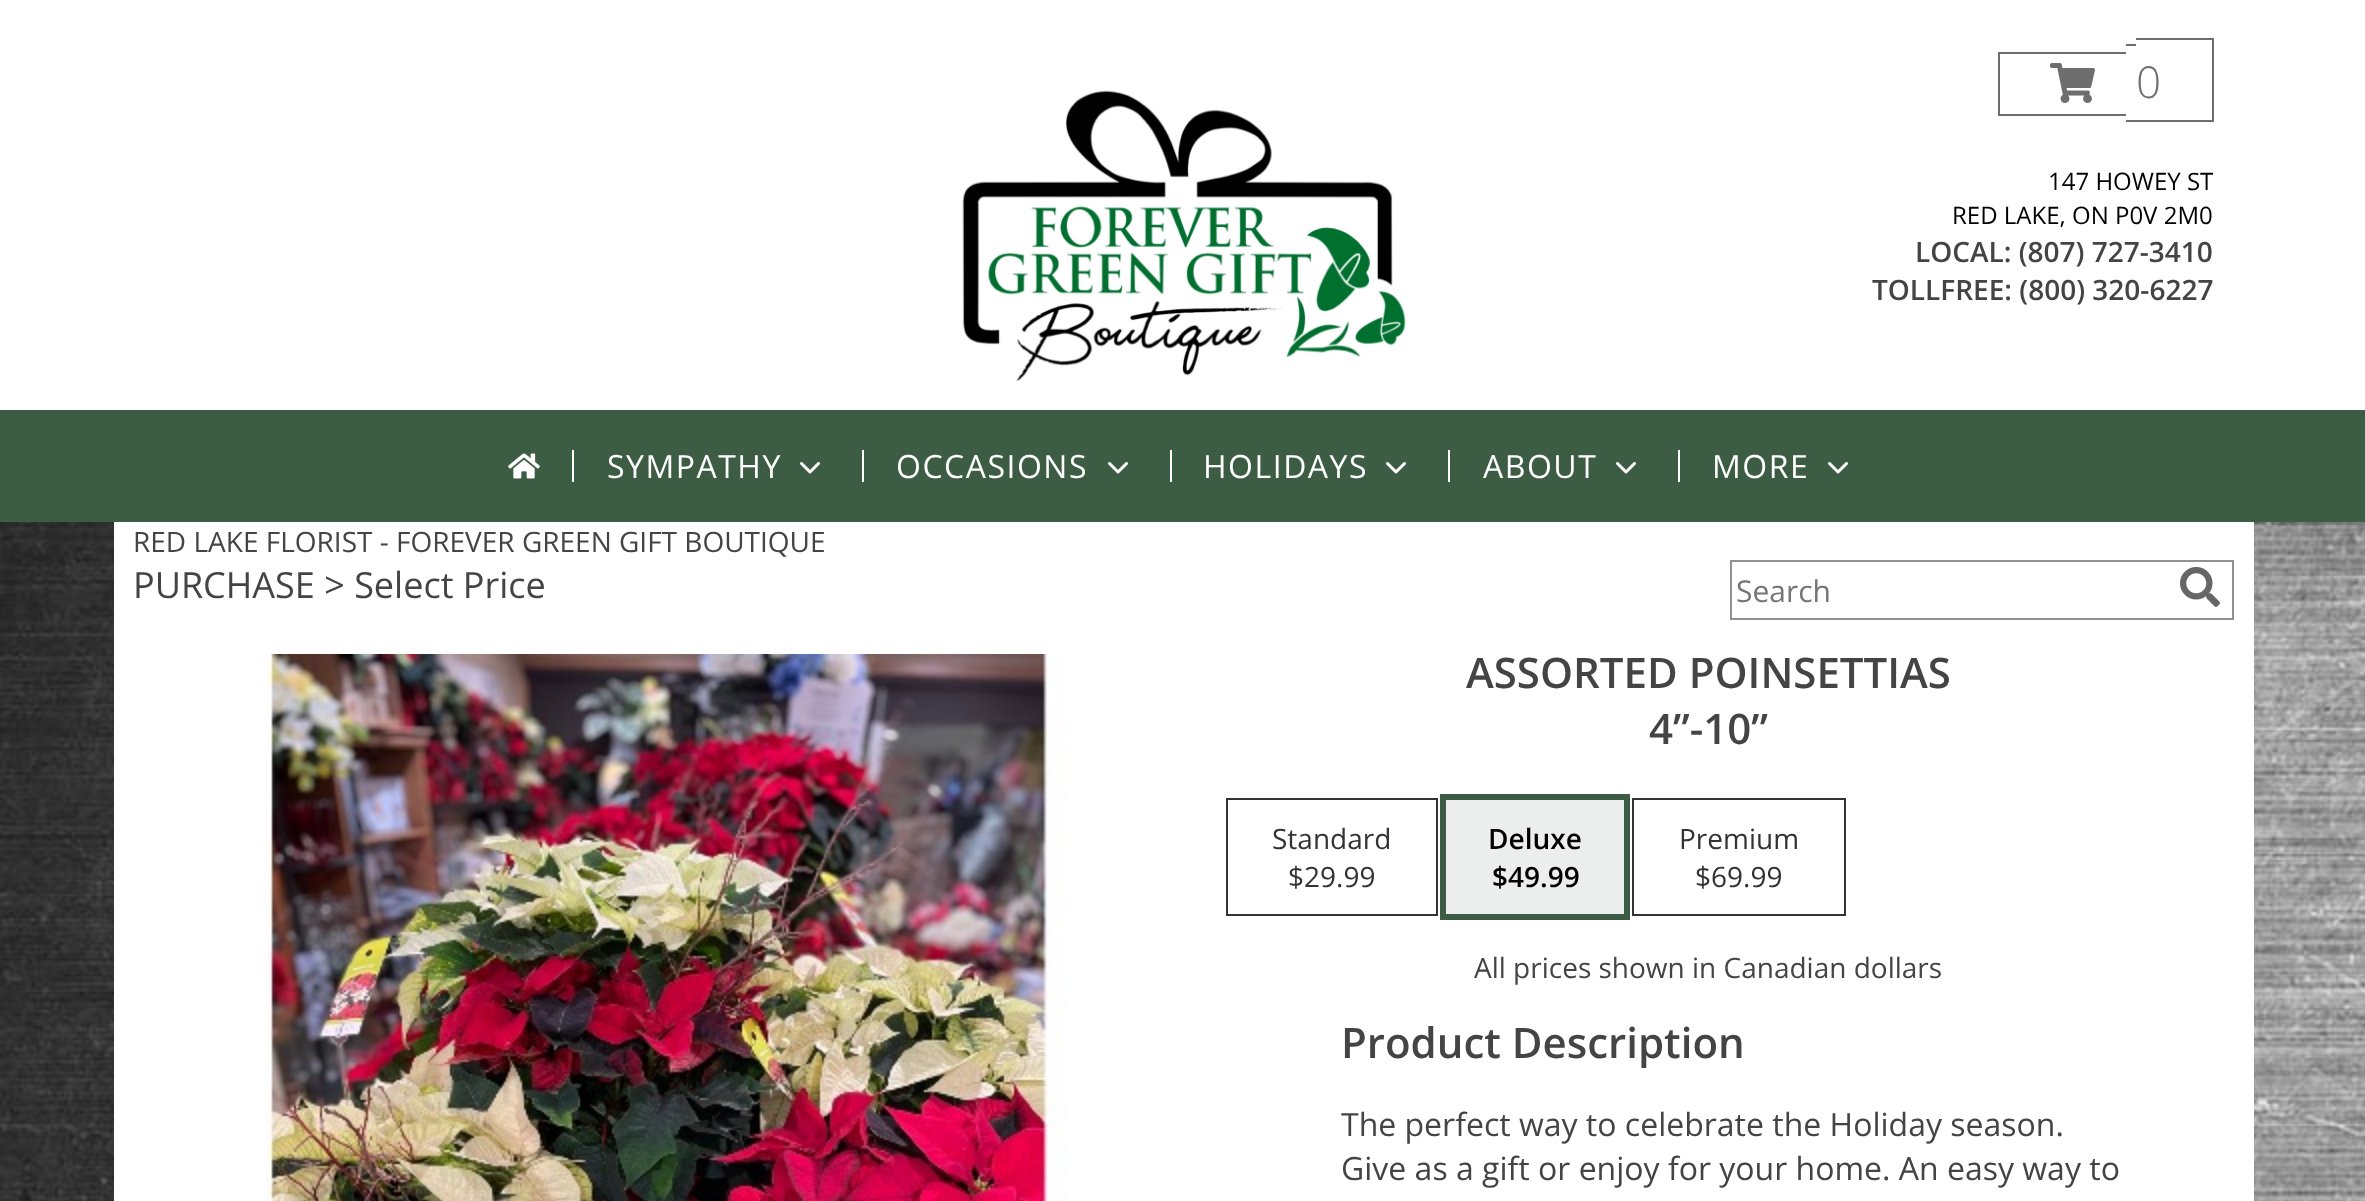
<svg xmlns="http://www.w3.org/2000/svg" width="2365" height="1201">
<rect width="100%" height="100%" fill="#fff"/>
<image x="0" y="522" width="2365" height="679" href="media/1.png"/>
<rect x="114" y="522" width="2140" height="679" fill="#fff"/>
<image x="962" y="90" width="444" height="292" href="media/2.png"/>
<rect x="1998" y="52" width="128" height="2" fill="#6e6e6e"/>
<rect x="1998" y="114" width="128" height="2" fill="#6e6e6e"/>
<rect x="1998" y="52" width="2" height="64" fill="#6e6e6e"/>
<rect x="2126" y="44" width="10" height="2" fill="#6e6e6e"/>
<rect x="2126" y="120" width="10" height="2" fill="#6e6e6e"/>
<rect x="2136" y="38" width="78" height="2" fill="#6e6e6e"/>
<rect x="2212" y="38" width="2" height="84" fill="#6e6e6e"/>
<rect x="2136" y="120" width="78" height="2" fill="#6e6e6e"/>
<image x="2050" y="63" width="45" height="40" href="media/3.png"/>
<text x="2136" y="98" style="font-family:Open Sans;font-size:44px;font-weight:300;fill:#6e6e6e">0</text>
<text x="2048" y="190" style="font-family:Open Sans;font-size:24px;fill:#000">147 HOWEY ST</text>
<text x="1952" y="224" style="font-family:Open Sans;font-size:24px;fill:#000">RED LAKE, ON P0V 2M0</text>
<text x="1915" y="262" style="font-family:Open Sans;font-size:28px;font-weight:600;fill:#444">LOCAL: (807) 727-3410</text>
<text x="1872" y="300" style="font-family:Open Sans;font-size:28px;font-weight:600;fill:#444">TOLLFREE: (800) 320-6227</text>
<rect y="410" width="2365" height="112" fill="#3c5d43"/>
<image x="508" y="453" width="32" height="26" href="media/4.png"/>
<rect x="572" y="450" width="2" height="32" fill="#fff"/>
<text x="607" y="478" style="font-family:Open Sans;font-size:32px;letter-spacing:1.5px;fill:#fff">SYMPATHY</text>
<image x="800" y="462" width="20" height="12" href="media/5.png"/>
<rect x="862" y="450" width="2" height="32" fill="#fff"/>
<text x="896" y="478" style="font-family:Open Sans;font-size:32px;letter-spacing:1.5px;fill:#fff">OCCASIONS</text>
<image x="1108" y="462" width="20" height="12" href="media/5.png"/>
<rect x="1170" y="450" width="2" height="32" fill="#fff"/>
<text x="1203" y="478" style="font-family:Open Sans;font-size:32px;letter-spacing:1.5px;fill:#fff">HOLIDAYS</text>
<image x="1386" y="462" width="20" height="12" href="media/5.png"/>
<rect x="1448" y="450" width="2" height="32" fill="#fff"/>
<text x="1483" y="478" style="font-family:Open Sans;font-size:32px;letter-spacing:1.5px;fill:#fff">ABOUT</text>
<image x="1616" y="462" width="20" height="12" href="media/5.png"/>
<rect x="1678" y="450" width="2" height="32" fill="#fff"/>
<text x="1712" y="478" style="font-family:Open Sans;font-size:32px;letter-spacing:1.5px;fill:#fff">MORE</text>
<image x="1828" y="462" width="20" height="12" href="media/5.png"/>
<text x="133" y="552" style="font-family:Open Sans;font-size:28px;fill:#444">RED LAKE FLORIST - FOREVER GREEN GIFT BOUTIQUE</text>
<text x="133" y="598" style="font-family:Open Sans;font-size:36px;fill:#444">PURCHASE &gt; Select Price</text>
<rect x="1731" y="561" width="502" height="58" fill="none" stroke="#919191" stroke-width="2"/>
<text x="1736" y="602" style="font-family:Open Sans;font-size:30px;fill:#757575">Search</text>
<image x="2180" y="567" width="40" height="40" href="media/6.png"/>
<image x="265" y="654" width="801" height="547" href="media/7.png"/>
<text x="1466" y="688" style="font-family:Open Sans;font-size:42px;font-weight:600;fill:#444">ASSORTED POINSETTIAS</text>
<text x="1649" y="744" style="font-family:Open Sans;font-size:42px;font-weight:600;fill:#444">4”-10”</text>
<rect x="1227" y="799" width="210" height="116" fill="none" stroke="#333" stroke-width="2"/>
<text x="1272" y="849" style="font-family:Open Sans;font-size:28px;fill:#333">Standard</text>
<text x="1288" y="887" style="font-family:Open Sans;font-size:28px;fill:#333">$29.99</text>
<rect x="1443" y="797" width="184" height="120" fill="none" stroke="#3c5d43" stroke-width="6"/>
<rect x="1446" y="800" width="178" height="114" fill="#ebeeec"/>
<text x="1488" y="849" style="font-family:Open Sans;font-size:28px;font-weight:600;fill:#000">Deluxe</text>
<text x="1492" y="887" style="font-family:Open Sans;font-size:28px;font-weight:600;fill:#000">$49.99</text>
<rect x="1633" y="799" width="212" height="116" fill="none" stroke="#333" stroke-width="2"/>
<text x="1679" y="849" style="font-family:Open Sans;font-size:28px;fill:#333">Premium</text>
<text x="1695" y="887" style="font-family:Open Sans;font-size:28px;fill:#333">$69.99</text>
<text x="1474" y="978" style="font-family:Open Sans;font-size:28px;fill:#444">All prices shown in Canadian dollars</text>
<text x="1341" y="1058" style="font-family:Open Sans;font-size:42px;font-weight:600;fill:#444">Product Description</text>
<text x="1341" y="1136" style="font-family:Open Sans;font-size:32px;fill:#444">The perfect way to celebrate the Holiday season.</text>
<text x="1341" y="1180" style="font-family:Open Sans;font-size:32px;fill:#444">Give as a gift or enjoy for your home. An easy way to</text>
</svg>
